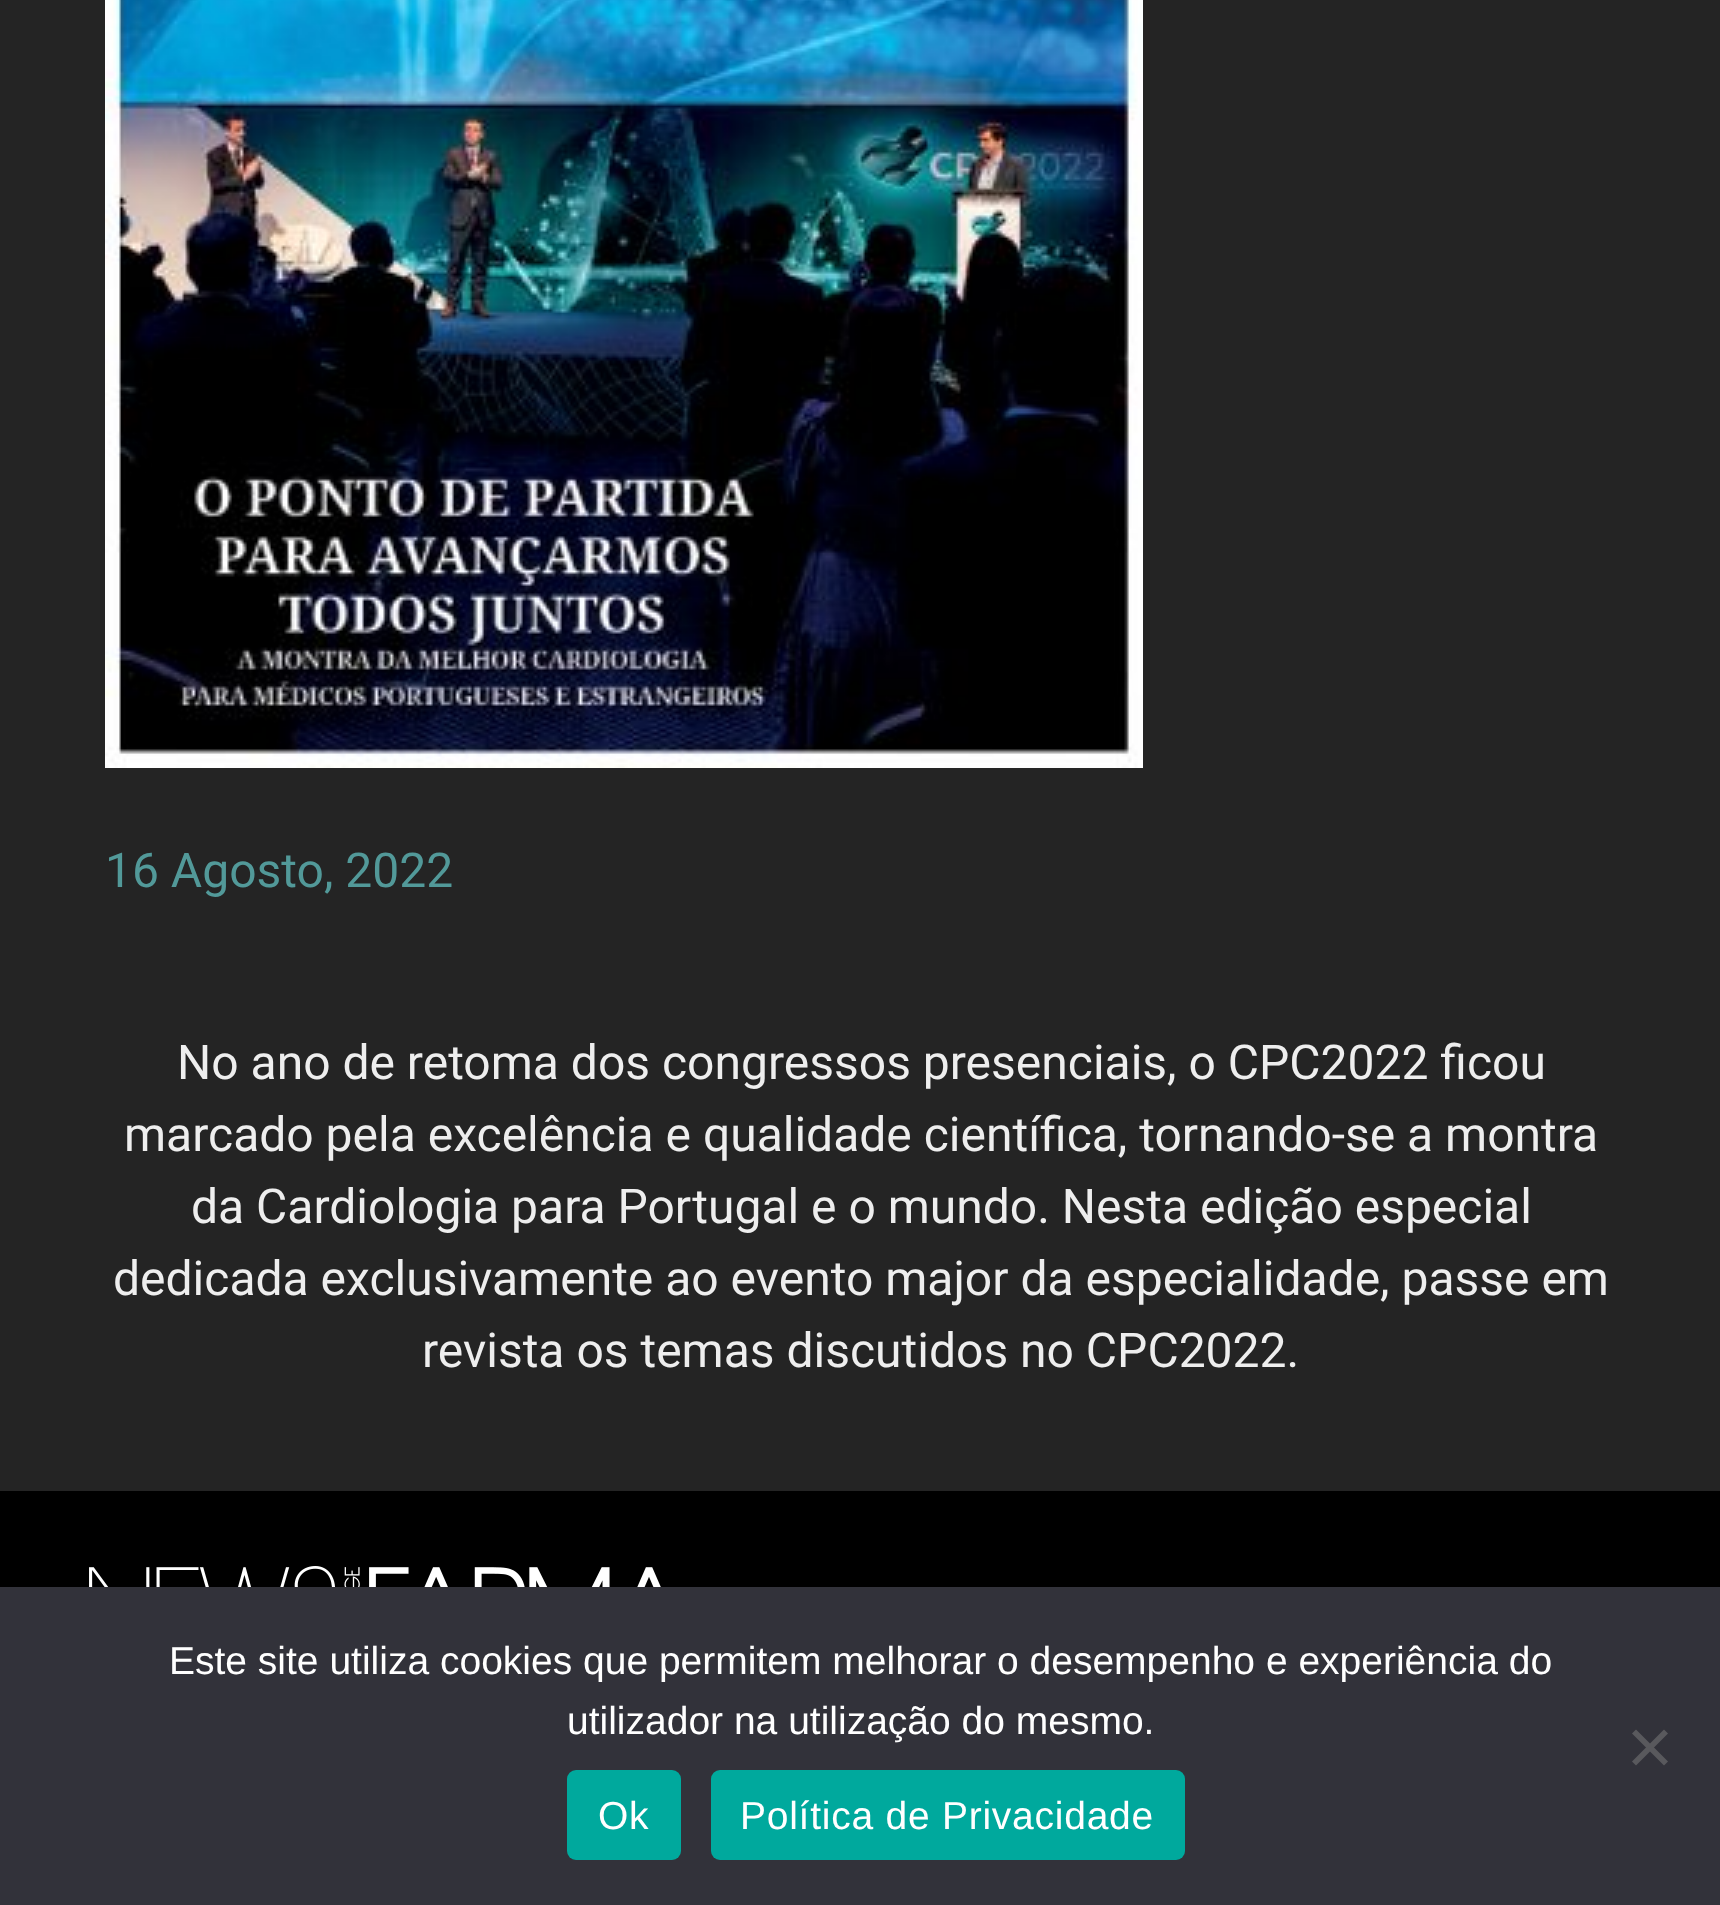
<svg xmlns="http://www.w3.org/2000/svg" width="1720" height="1905">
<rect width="100%" height="100%" fill="#242424"/>
<image x="105" y="0" width="1038" height="768" href="media/1.png"/>
<text x="105" y="887" style="font-family:Roboto;font-size:48px;fill:#529999">16 Agosto, 2022</text>
<text x="177" y="1079" style="font-family:Roboto;font-size:48px;fill:#eee">No ano de retoma dos congressos presenciais, o CPC2022 ficou</text>
<text x="124" y="1151" style="font-family:Roboto;font-size:48px;fill:#eee">marcado pela excelência e qualidade científica, tornando-se a montra</text>
<text x="191" y="1223" style="font-family:Roboto;font-size:48px;fill:#eee">da Cardiologia para Portugal e o mundo. Nesta edição especial</text>
<text x="113" y="1295" style="font-family:Roboto;font-size:48px;fill:#eee">dedicada exclusivamente ao evento major da especialidade, passe em</text>
<text x="422" y="1367" style="font-family:Roboto;font-size:48px;fill:#eee">revista os temas discutidos no CPC2022.</text>
<rect y="1491" width="1720" height="96" fill="#000"/>
<image x="89" y="1566" width="572" height="21" href="media/2.png"/>
<rect y="1587" width="1720" height="318" fill="#32323a"/>
<text x="169" y="1674" style="font-family:Liberation Sans;font-size:39px;fill:#fff">Este site utiliza cookies que permitem melhorar o desempenho e experiência do</text>
<text x="567" y="1734" style="font-family:Liberation Sans;font-size:39px;fill:#fff">utilizador na utilização do mesmo.</text>
<path d="M1664 1729.5l4 4l-32 32l-4-4z" fill="#59595d"/>
<path d="M1632 1733.5l4-4l32 32l-4 4z" fill="#59595d"/>
<rect x="567" y="1770" width="114" height="90" rx="9" fill="#00a99d"/>
<text x="598" y="1829" style="font-family:Liberation Sans;font-size:39px;letter-spacing:0.75px;fill:#fff">Ok</text>
<rect x="711" y="1770" width="474" height="90" rx="9" fill="#00a99d"/>
<text x="740" y="1829" style="font-family:Liberation Sans;font-size:39px;letter-spacing:0.75px;fill:#fff">Política de Privacidade</text>
</svg>
